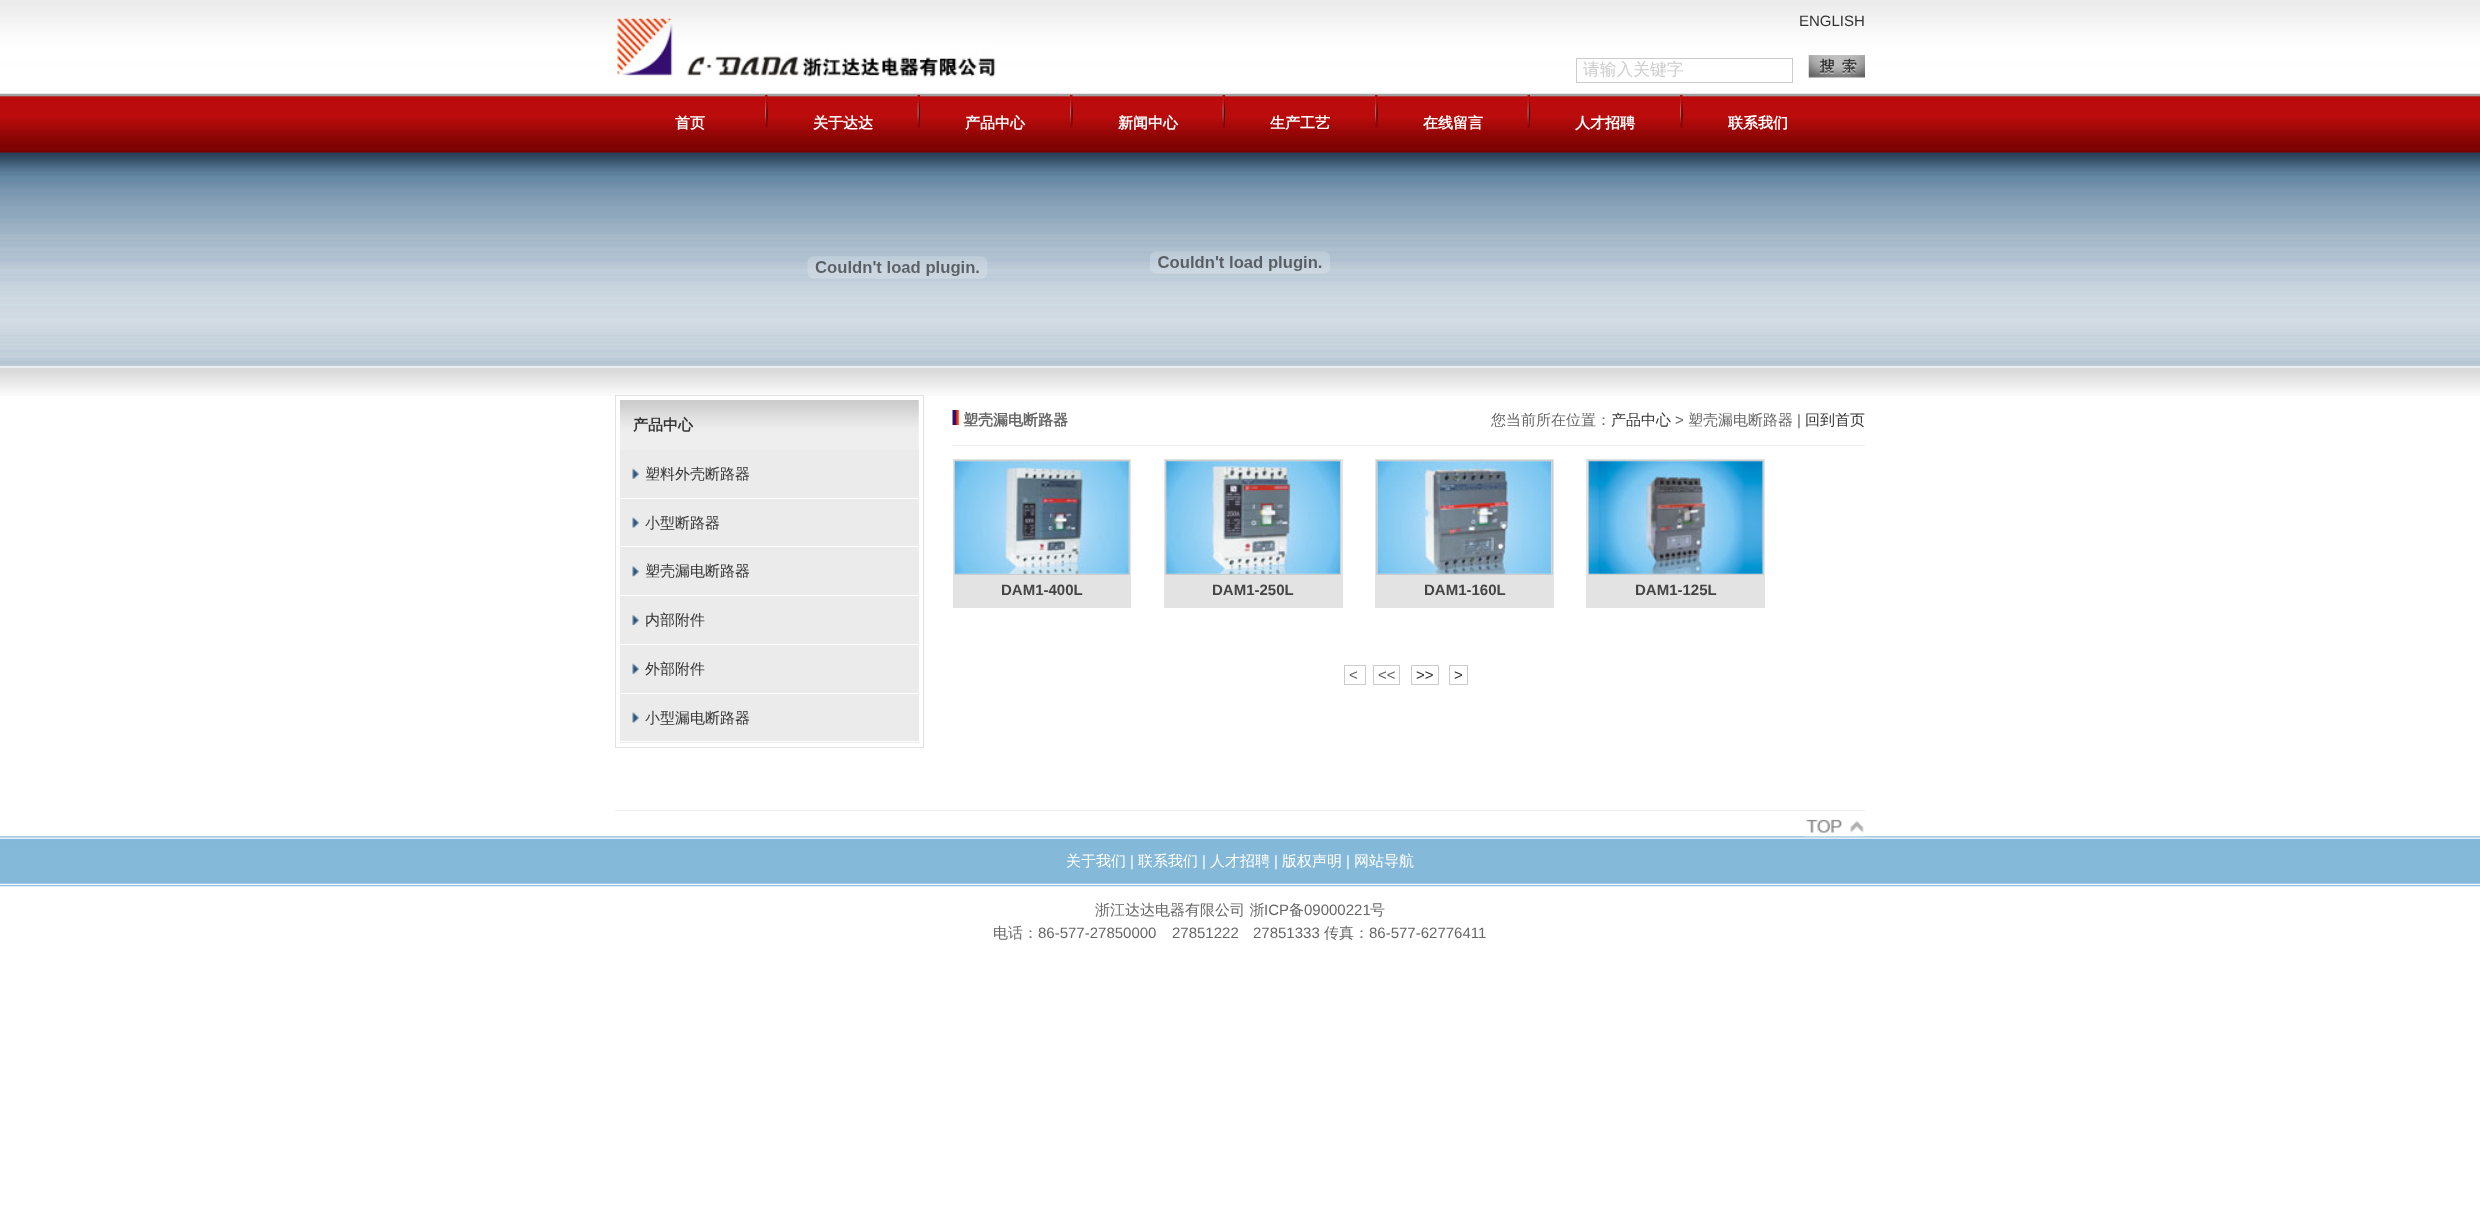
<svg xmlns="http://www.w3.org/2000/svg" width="2480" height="1232">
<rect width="100%" height="100%" fill="#fff"/>
<image x="0" y="0" width="2480" height="396" href="media/1.png"/>
<image x="617" y="18" width="379" height="59" href="media/2.png"/>
<text x="1799" y="26" style="font-family:Liberation Sans;font-size:15px;fill:#333">ENGLISH</text>
<rect x="1576.5" y="58.5" width="216" height="24" fill="none" stroke="#ccc"/>
<text x="1583" y="75" style="font-family:WenQuanYi Zen Hei;font-size:16.75px;font-weight:500;fill:#ccc">请输入关键字</text>
<image x="1808" y="55" width="57" height="23" href="media/3.png"/>
<text x="675" y="128" style="font-family:WenQuanYi Zen Hei;font-size:15px;font-weight:bold;fill:#fff">首页</text>
<image x="765" y="95" width="3" height="33" href="media/4.png"/>
<text x="813" y="128" style="font-family:WenQuanYi Zen Hei;font-size:15px;font-weight:bold;fill:#fff">关于达达</text>
<image x="917" y="95" width="3" height="33" href="media/5.png"/>
<text x="965" y="128" style="font-family:WenQuanYi Zen Hei;font-size:15px;font-weight:bold;fill:#fff">产品中心</text>
<image x="1070" y="95" width="3" height="33" href="media/4.png"/>
<text x="1118" y="128" style="font-family:WenQuanYi Zen Hei;font-size:15px;font-weight:bold;fill:#fff">新闻中心</text>
<image x="1222" y="95" width="3" height="33" href="media/5.png"/>
<text x="1270" y="128" style="font-family:WenQuanYi Zen Hei;font-size:15px;font-weight:bold;fill:#fff">生产工艺</text>
<image x="1375" y="95" width="3" height="33" href="media/4.png"/>
<text x="1423" y="128" style="font-family:WenQuanYi Zen Hei;font-size:15px;font-weight:bold;fill:#fff">在线留言</text>
<image x="1527" y="95" width="3" height="33" href="media/5.png"/>
<text x="1575" y="128" style="font-family:WenQuanYi Zen Hei;font-size:15px;font-weight:bold;fill:#fff">人才招聘</text>
<image x="1680" y="95" width="3" height="33" href="media/4.png"/>
<text x="1728" y="128" style="font-family:WenQuanYi Zen Hei;font-size:15px;font-weight:bold;fill:#fff">联系我们</text>
<image x="807" y="256" width="181" height="23" href="media/6.png"/>
<image x="1150" y="251" width="180" height="23" href="media/7.png"/>
<rect x="615.5" y="395.5" width="308" height="352" fill="none" stroke="#e2e2e2"/>
<image x="620" y="400" width="299" height="50" href="media/8.png"/>
<text x="633" y="430" style="font-family:WenQuanYi Zen Hei;font-size:15px;font-weight:bold;fill:#333">产品中心</text>
<rect x="620" y="450" width="299" height="48" fill="#ebebeb"/>
<image x="632" y="468" width="7" height="11" href="media/9.png"/>
<text x="645" y="479" style="font-family:WenQuanYi Zen Hei;font-size:15px;font-weight:500;fill:#333">塑料外壳断路器</text>
<rect x="620" y="499" width="299" height="96" fill="#ebebeb"/>
<rect x="620" y="546" width="299" height="1" fill="#fff"/>
<image x="632" y="517" width="7" height="11" href="media/10.png"/>
<text x="645" y="528" style="font-family:WenQuanYi Zen Hei;font-size:15px;font-weight:500;fill:#333">小型断路器</text>
<image x="632" y="566" width="7" height="11" href="media/11.png"/>
<text x="645" y="576" style="font-family:WenQuanYi Zen Hei;font-size:15px;font-weight:500;fill:#333">塑壳漏电断路器</text>
<rect x="620" y="596" width="299" height="48" fill="#ebebeb"/>
<image x="632" y="615" width="7" height="10" href="media/12.png"/>
<text x="645" y="625" style="font-family:WenQuanYi Zen Hei;font-size:15px;font-weight:500;fill:#333">内部附件</text>
<rect x="620" y="645" width="299" height="48" fill="#ebebeb"/>
<image x="632" y="663" width="7" height="11" href="media/9.png"/>
<text x="645" y="674" style="font-family:WenQuanYi Zen Hei;font-size:15px;font-weight:500;fill:#333">外部附件</text>
<rect x="620" y="694" width="299" height="49" fill="#ebebeb"/>
<rect x="620" y="741" width="299" height="1" fill="#fff"/>
<image x="632" y="712" width="7" height="11" href="media/10.png"/>
<text x="645" y="723" style="font-family:WenQuanYi Zen Hei;font-size:15px;font-weight:500;fill:#333">小型漏电断路器</text>
<rect x="953" y="445" width="912" height="1" fill="#eee"/>
<image x="952" y="410" width="7" height="15" href="media/13.png"/>
<text x="963" y="425" style="font-family:WenQuanYi Zen Hei;font-size:15px;font-weight:bold;fill:#666">塑壳漏电断路器</text>
<text x="1491" y="425" style="font-family:WenQuanYi Zen Hei;font-size:15px;font-weight:500;fill:#666">您当前所在位置：</text>
<text x="1611" y="425" style="font-family:WenQuanYi Zen Hei;font-size:15px;font-weight:500;fill:#333">产品中心</text>
<text x="1675" y="425" style="font-family:Liberation Sans;font-size:15px;fill:#666">&gt;</text>
<text x="1688" y="425" style="font-family:WenQuanYi Zen Hei;font-size:15px;font-weight:500;fill:#666">塑壳漏电断路器</text>
<text x="1797" y="425" style="font-family:Liberation Sans;font-size:15px;fill:#666">|</text>
<text x="1805" y="425" style="font-family:WenQuanYi Zen Hei;font-size:15px;font-weight:500;fill:#333">回到首页</text>
<rect x="953" y="459" width="178" height="149" fill="#e3e3e3"/>
<rect x="954.5" y="460.5" width="175" height="114" fill="none" stroke="#ccc"/>
<image x="955" y="461" width="174" height="113" href="media/14.png"/>
<text x="1001" y="595" style="font-family:Liberation Sans;font-size:15px;font-weight:bold;fill:#454545">DAM1-400L</text>
<rect x="1164" y="459" width="179" height="149" fill="#e3e3e3"/>
<rect x="1165.5" y="460.5" width="175" height="114" fill="none" stroke="#ccc"/>
<image x="1166" y="461" width="174" height="113" href="media/15.png"/>
<text x="1212" y="595" style="font-family:Liberation Sans;font-size:15px;font-weight:bold;fill:#454545">DAM1-250L</text>
<rect x="1375" y="459" width="179" height="149" fill="#e3e3e3"/>
<rect x="1376.5" y="460.5" width="176" height="114" fill="none" stroke="#ccc"/>
<image x="1377" y="461" width="175" height="113" href="media/16.png"/>
<text x="1424" y="595" style="font-family:Liberation Sans;font-size:15px;font-weight:bold;fill:#454545">DAM1-160L</text>
<rect x="1586" y="459" width="179" height="149" fill="#e3e3e3"/>
<rect x="1588.5" y="460.5" width="175" height="114" fill="none" stroke="#ccc"/>
<image x="1588" y="461" width="175" height="113" href="media/17.png"/>
<text x="1635" y="595" style="font-family:Liberation Sans;font-size:15px;font-weight:bold;fill:#454545">DAM1-125L</text>
<rect x="1344.5" y="665.5" width="21" height="19" fill="none" stroke="#ccc"/>
<text x="1349" y="680" style="font-family:Liberation Sans;font-size:15px;fill:#666">&lt;</text>
<rect x="1373.5" y="665.5" width="26" height="19" fill="none" stroke="#ccc"/>
<text x="1378" y="680" style="font-family:Liberation Sans;font-size:15px;fill:#666">&lt;&lt;</text>
<rect x="1411.5" y="665.5" width="27" height="19" fill="none" stroke="#ccc"/>
<text x="1416" y="680" style="font-family:Liberation Sans;font-size:15px;fill:#333">&gt;&gt;</text>
<rect x="1449.5" y="665.5" width="18" height="19" fill="none" stroke="#ccc"/>
<text x="1454" y="680" style="font-family:Liberation Sans;font-size:15px;fill:#333">&gt;</text>
<rect x="615" y="810" width="1250" height="1" fill="#eee"/>
<image x="0" y="836" width="2480" height="51" href="media/19.png"/>
<image x="1805" y="819" width="60" height="18" href="media/18.png"/>
<text x="1066" y="866" style="font-family:WenQuanYi Zen Hei;font-size:15px;font-weight:500;fill:#fff">关于我们</text>
<text x="1130" y="866" style="font-family:Liberation Sans;font-size:15px;fill:#fff">|</text>
<text x="1138" y="866" style="font-family:WenQuanYi Zen Hei;font-size:15px;font-weight:500;fill:#fff">联系我们</text>
<text x="1202" y="866" style="font-family:Liberation Sans;font-size:15px;fill:#fff">|</text>
<text x="1210" y="866" style="font-family:WenQuanYi Zen Hei;font-size:15px;font-weight:500;fill:#fff">人才招聘</text>
<text x="1274" y="866" style="font-family:Liberation Sans;font-size:15px;fill:#fff">|</text>
<text x="1282" y="866" style="font-family:WenQuanYi Zen Hei;font-size:15px;font-weight:500;fill:#fff">版权声明</text>
<text x="1346" y="866" style="font-family:Liberation Sans;font-size:15px;fill:#fff">|</text>
<text x="1354" y="866" style="font-family:WenQuanYi Zen Hei;font-size:15px;font-weight:500;fill:#fff">网站导航</text>
<text x="1095" y="915" style="font-family:WenQuanYi Zen Hei;font-size:15px;font-weight:500;fill:#666">浙江达达电器有限公司 浙</text>
<text x="1264" y="915" style="font-family:Liberation Sans;font-size:15px;fill:#666">ICP</text>
<text x="1289" y="915" style="font-family:WenQuanYi Zen Hei;font-size:15px;font-weight:500;fill:#666">备</text>
<text x="1304" y="915" style="font-family:Liberation Sans;font-size:15px;fill:#666">09000221</text>
<text x="1370" y="915" style="font-family:WenQuanYi Zen Hei;font-size:15px;font-weight:500;fill:#666">号</text>
<text x="993" y="938" style="font-family:WenQuanYi Zen Hei;font-size:15px;font-weight:500;fill:#666">电话：</text>
<text x="1038" y="938" style="font-family:Liberation Sans;font-size:15px;fill:#666">86-577-27850000</text>
<text x="1172" y="938" style="font-family:Liberation Sans;font-size:15px;fill:#666">27851222</text>
<text x="1253" y="938" style="font-family:Liberation Sans;font-size:15px;fill:#666">27851333</text>
<text x="1324" y="938" style="font-family:WenQuanYi Zen Hei;font-size:15px;font-weight:500;fill:#666">传真：</text>
<text x="1369" y="938" style="font-family:Liberation Sans;font-size:15px;fill:#666">86-577-62776411</text>
</svg>
